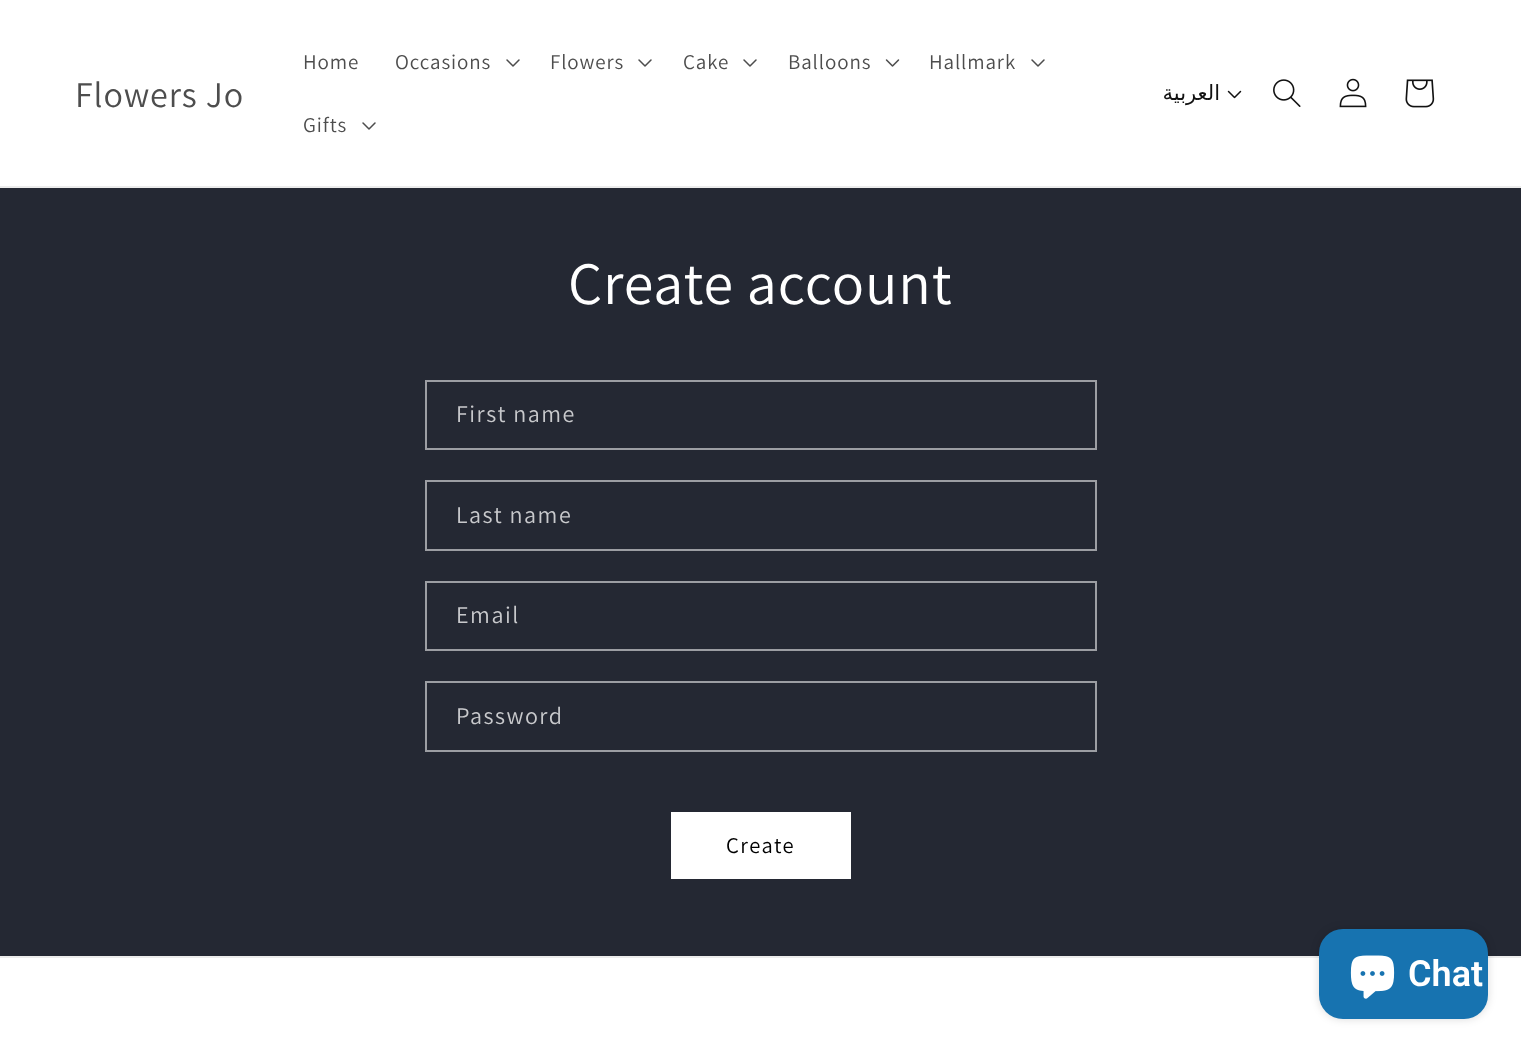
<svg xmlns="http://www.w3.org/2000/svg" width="1521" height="1049">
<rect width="100%" height="100%" fill="#242833"/>
<rect width="1521" height="186" fill="#fff"/>
<rect y="186" width="1521" height="2" fill="#ececec"/>
<text x="75" y="107" style="font-family:Assistant;font-size:36px;letter-spacing:0.9px;fill:#4d4d4d">Flowers Jo</text>
<text x="303" y="69" style="font-family:Assistant;font-size:21px;letter-spacing:0.9px;fill:#4d4d4d">Home</text>
<text x="395" y="69" style="font-family:Assistant;font-size:21px;letter-spacing:0.9px;fill:#4d4d4d">Occasions</text>
<image x="506" y="59" width="14" height="8" href="media/1.png"/>
<text x="550" y="69" style="font-family:Assistant;font-size:21px;letter-spacing:0.9px;fill:#4d4d4d">Flowers</text>
<image x="638" y="59" width="14" height="8" href="media/1.png"/>
<text x="683" y="69" style="font-family:Assistant;font-size:21px;letter-spacing:0.9px;fill:#4d4d4d">Cake</text>
<image x="743" y="59" width="14" height="8" href="media/1.png"/>
<text x="788" y="69" style="font-family:Assistant;font-size:21px;letter-spacing:0.9px;fill:#4d4d4d">Balloons</text>
<image x="885" y="59" width="15" height="8" href="media/2.png"/>
<text x="929" y="69" style="font-family:Assistant;font-size:21px;letter-spacing:0.9px;fill:#4d4d4d">Hallmark</text>
<image x="1031" y="59" width="14" height="8" href="media/1.png"/>
<text x="303" y="132" style="font-family:Assistant;font-size:21px;letter-spacing:0.9px;fill:#4d4d4d">Gifts</text>
<image x="362" y="122" width="14" height="8" href="media/1.png"/>
<text x="1220" y="100" style="font-family:DejaVu Sans;font-size:21px;letter-spacing:0.9px;direction:rtl;fill:#121212">العربية</text>
<image x="1227" y="90" width="15" height="9" href="media/3.png"/>
<image x="1273" y="79" width="28" height="28" href="media/4.png"/>
<image x="1339" y="78" width="28" height="30" href="media/5.png"/>
<image x="1405" y="79" width="30" height="29" href="media/6.png"/>
<text x="568" y="304" style="font-family:Assistant;font-size:60px;letter-spacing:0.9px;fill:#fff">Create account</text>
<rect x="426" y="381" width="670" height="68" fill="none" stroke="#9c9ea3" stroke-width="2"/>
<text x="456" y="422" style="font-family:Assistant;font-size:24px;letter-spacing:1.5px;fill:#c8c9cc">First name</text>
<rect x="426" y="481" width="670" height="69" fill="none" stroke="#9c9ea3" stroke-width="2"/>
<text x="456" y="523" style="font-family:Assistant;font-size:24px;letter-spacing:1.5px;fill:#c8c9cc">Last name</text>
<rect x="426" y="582" width="670" height="68" fill="none" stroke="#9c9ea3" stroke-width="2"/>
<text x="456" y="623" style="font-family:Assistant;font-size:24px;letter-spacing:1.5px;fill:#c8c9cc">Email</text>
<rect x="426" y="682" width="670" height="69" fill="none" stroke="#9c9ea3" stroke-width="2"/>
<text x="456" y="724" style="font-family:Assistant;font-size:24px;letter-spacing:1.5px;fill:#c8c9cc">Password</text>
<rect x="671" y="812" width="180" height="67" fill="#fff"/>
<text x="726" y="853" style="font-family:Assistant;font-size:22.5px;letter-spacing:1.5px;fill:#000">Create</text>
<rect y="958" width="1521" height="91" fill="#fff"/>
<rect y="956" width="1521" height="2" fill="#ececec"/>
<rect x="1319" y="929" width="169" height="90" rx="24" fill="#00000026" filter="blur(4px)"/>
<rect x="1319" y="929" width="169" height="90" rx="24" fill="#1773b0"/>
<image x="1350" y="955" width="45" height="44" href="media/7.png"/>
<text x="1408" y="986" style="font-family:Roboto;font-size:36px;font-weight:600;fill:#fff">Chat</text>
</svg>
